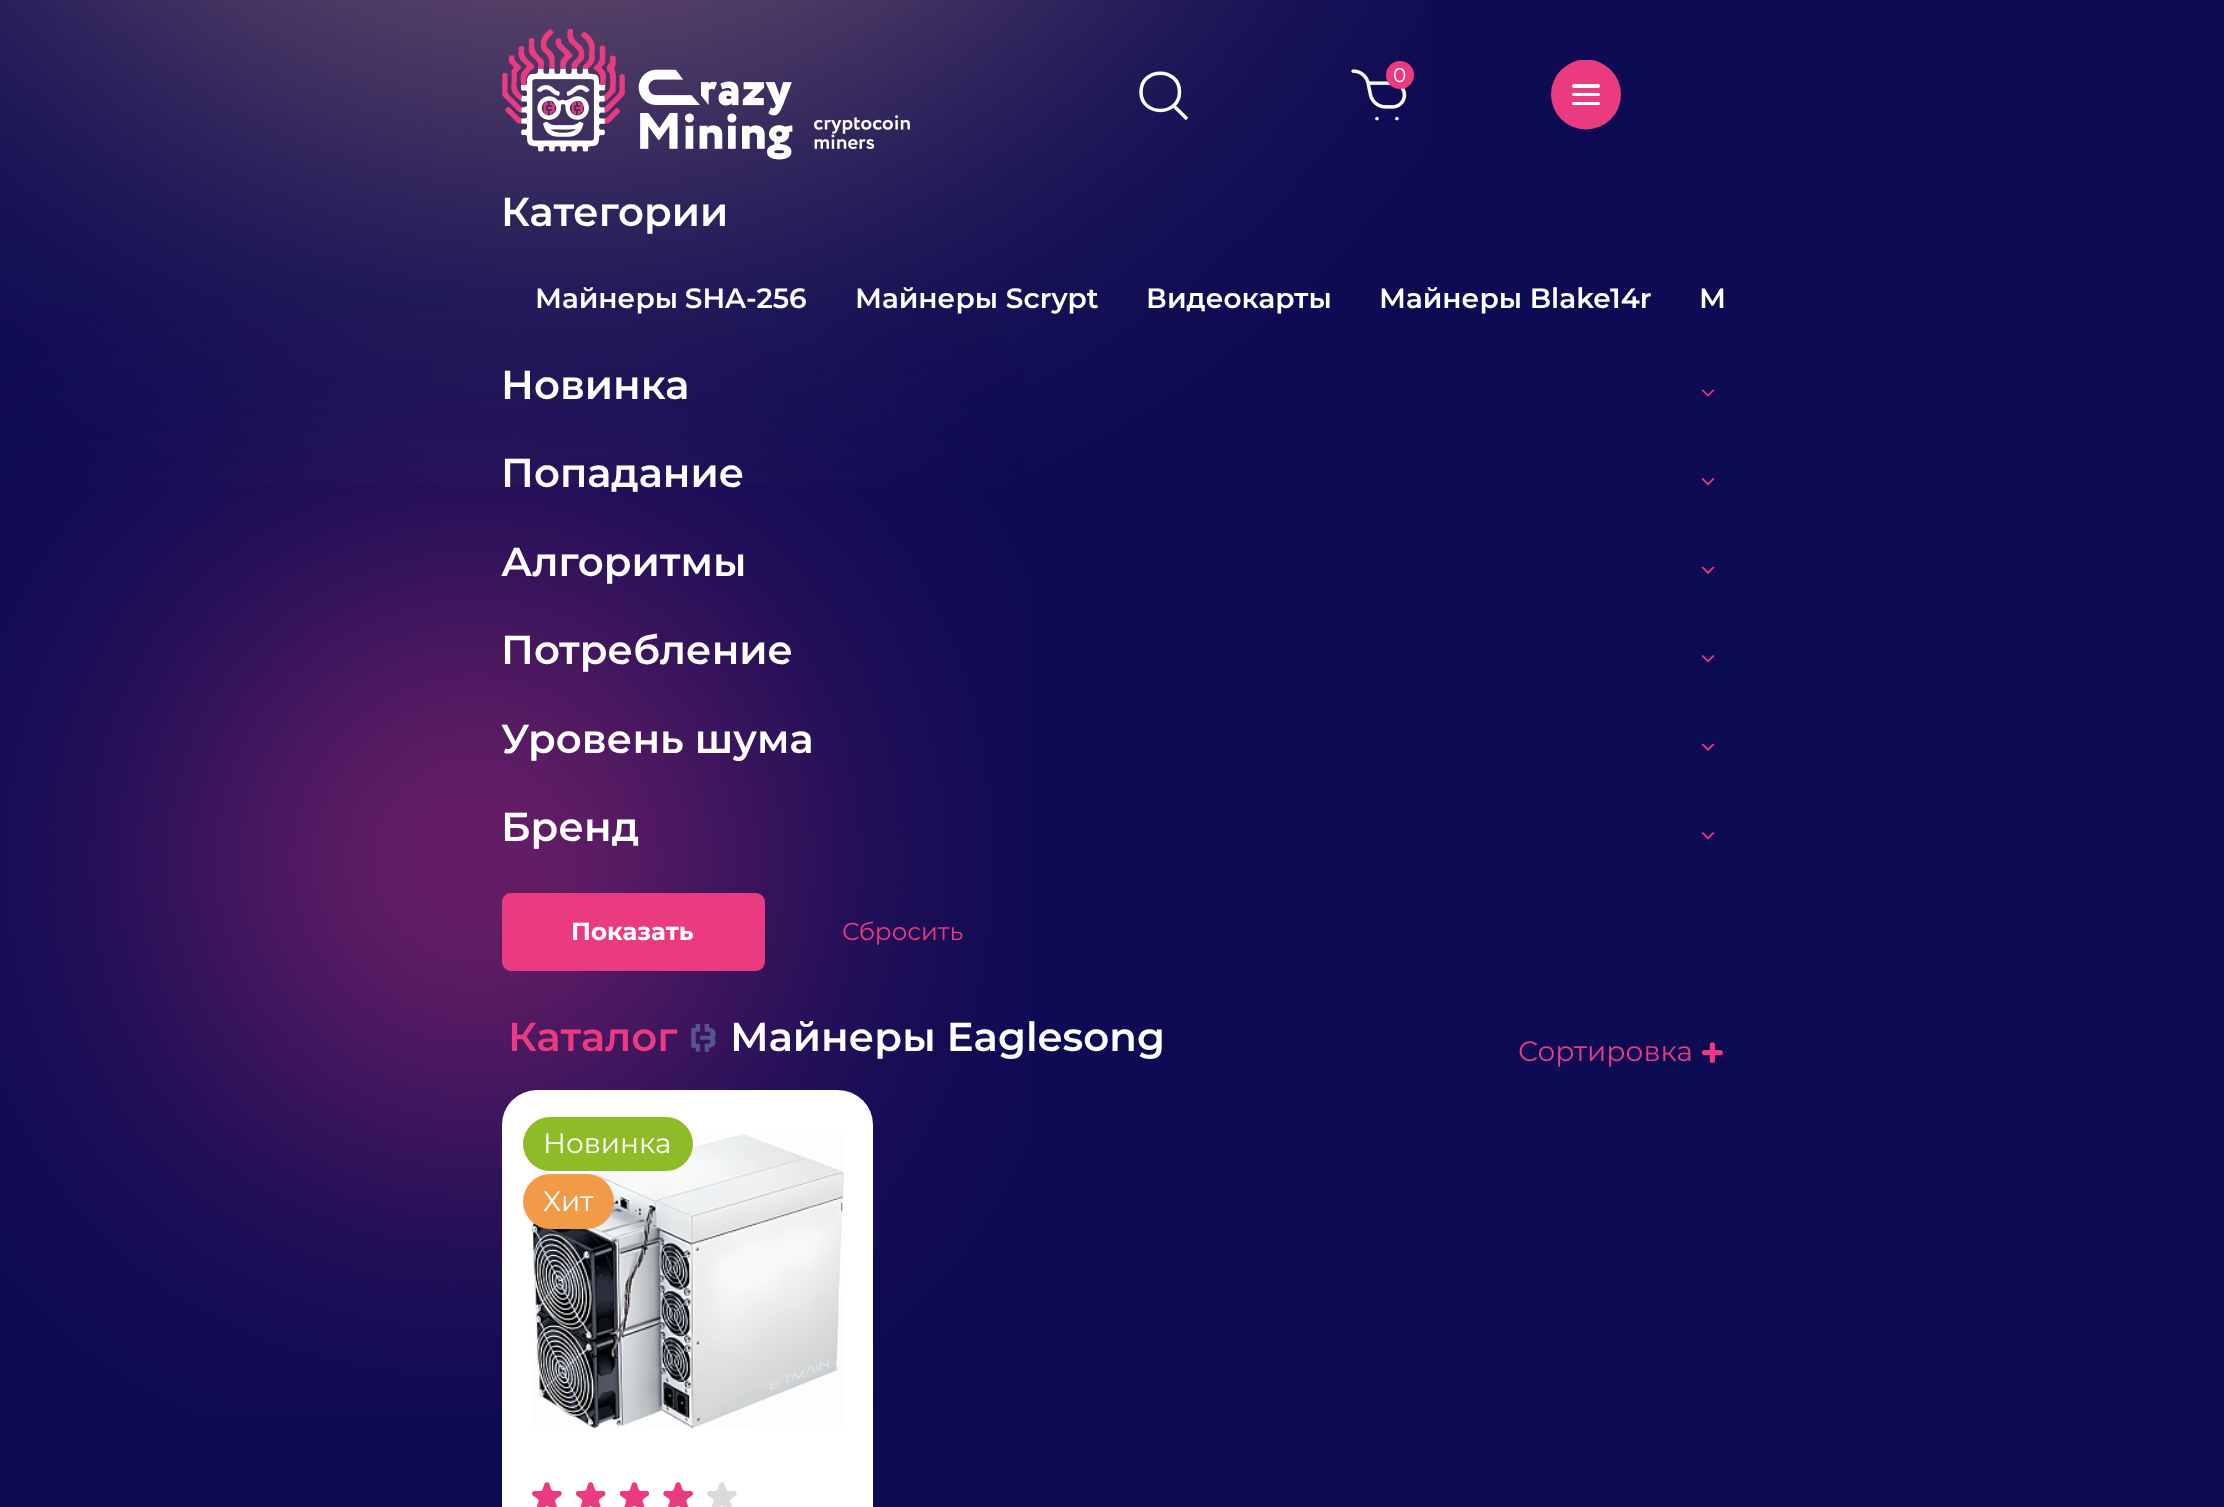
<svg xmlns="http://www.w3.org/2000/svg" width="2224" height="1507">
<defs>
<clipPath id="clip1"><rect x="1551" y="60" width="71" height="70"/></clipPath>
</defs>
<rect width="100%" height="100%" fill="#0d0b54"/>
<image x="0" y="309" width="1026" height="1101" href="media/12.png"/>
<image x="0" y="0" width="1432" height="485" href="media/1.png"/>
<image x="502" y="28" width="408" height="132" href="media/2.png"/>
<path d="M1173.5 105.5l13.5 13.5m-7.5-27c0 24.5-38.5 24.5-38.5 0c0-25 38.5-25 38.5 0z" fill="none" stroke="#fff" stroke-width="3.5"/>
<image x="1351" y="69" width="56" height="52" href="media/3.png"/>
<circle cx="1400" cy="75" r="14" fill="#ea3b80"/>
<text x="1393" y="82" style="font-family:Montserrat;font-size:20px;fill:#fff">0</text>
<g clip-path="url(#clip1)">
<circle cx="1586" cy="94.5" r="35" fill="#ea3b80"/>
</g>
<rect x="1572" y="84" width="28" height="4" rx="2" fill="#fff"/>
<rect x="1572" y="93" width="28" height="3" rx="1.5" fill="#fff"/>
<rect x="1572" y="102" width="28" height="3" rx="1.5" fill="#fff"/>
<text x="501" y="226" style="font-family:Montserrat;font-size:40.25px;font-weight:600;fill:#fff">Категории</text>
<text x="535" y="308" word-spacing="-1" style="font-family:Montserrat;font-size:28px;font-weight:600;fill:#fff">Майнеры SHA-256</text>
<text x="855" y="308" style="font-family:Montserrat;font-size:28px;font-weight:600;fill:#fff">Майнеры Scrypt</text>
<text x="1146" y="308" style="font-family:Montserrat;font-size:28px;font-weight:600;fill:#fff">Видеокарты</text>
<text x="1379" y="308" style="font-family:Montserrat;font-size:28px;font-weight:600;fill:#fff">Майнеры Blake14r</text>
<text x="1699" y="308" style="font-family:Montserrat;font-size:28px;font-weight:600;fill:#fff">М</text>
<text x="501" y="399" style="font-family:Montserrat;font-size:40.25px;font-weight:600;fill:#fff">Новинка</text>
<path d="M1703 389.5l6 6l-1 1l-6.5-6z" fill="#ea3b80"/>
<path d="M1707 395.5l6-6l1.5 1l-6.5 6z" fill="#ea3b80"/>
<text x="501" y="487" style="font-family:Montserrat;font-size:40.25px;font-weight:600;fill:#fff">Попадание</text>
<path d="M1703 478l6 6l-1 1.5l-6.5-6.5z" fill="#ea3b80"/>
<path d="M1707 484l6-6l1.5 1l-6.5 6.5z" fill="#ea3b80"/>
<text x="501" y="576" style="font-family:Montserrat;font-size:40.25px;font-weight:600;fill:#fff">Алгоритмы</text>
<path d="M1703 566.5l6 6l-1 1.5l-6.5-6.5z" fill="#ea3b80"/>
<path d="M1707 572.5l6-6l1.5 1l-6.5 6.5z" fill="#ea3b80"/>
<text x="501" y="664" style="font-family:Montserrat;font-size:40.25px;font-weight:600;fill:#fff">Потребление</text>
<path d="M1703 655l6 6l-1 1.5l-6.5-6.5z" fill="#ea3b80"/>
<path d="M1707 661l6-6l1.5 1l-6.5 6.5z" fill="#ea3b80"/>
<text x="501" y="753" style="font-family:Montserrat;font-size:40.25px;font-weight:600;fill:#fff">Уровень шума</text>
<path d="M1703 743.5l6 6l-1 1.5l-6.5-6.5z" fill="#ea3b80"/>
<path d="M1707 749.5l6-6l1.5 1l-6.5 6.5z" fill="#ea3b80"/>
<text x="501" y="841" style="font-family:Montserrat;font-size:40.25px;font-weight:600;fill:#fff">Бренд</text>
<path d="M1703 832l6 6l-1 1.5l-6.5-6.5z" fill="#ea3b80"/>
<path d="M1707 838l6-6l1.5 1l-6.5 6.5z" fill="#ea3b80"/>
<rect x="504" y="895" width="259" height="74" rx="7" fill="#ea3b80" stroke="#ea3b80" stroke-width="4"/>
<text x="571" y="940" style="font-family:Montserrat;font-size:24.5px;font-weight:bold;fill:#fff">Показать</text>
<text x="842" y="940" style="font-family:Montserrat;font-size:24.5px;fill:#ea3b80">Сбросить</text>
<text x="508" y="1051" style="font-family:Montserrat;font-size:40.25px;font-weight:600;fill:#ea3b80">Каталог</text>
<image x="691" y="1024" width="25" height="28" href="media/4.png"/>
<text x="730" y="1051" style="font-family:Montserrat;font-size:40.25px;font-weight:600;fill:#fff">Майнеры Eaglesong</text>
<text x="1518" y="1061" style="font-family:Montserrat;font-size:28px;fill:#ea3b80">Сортировка</text>
<image x="1701" y="1042" width="22" height="22" href="media/5.png"/>
<rect x="502" y="1090" width="371" height="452" rx="35" fill="#fff"/>
<image x="532" y="1134" width="312" height="295" href="media/6.png"/>
<rect x="523" y="1117" width="170" height="54" rx="27" fill="#8dbc28"/>
<text x="543" y="1153" style="font-family:Montserrat;font-size:28px;fill:#fff">Новинка</text>
<rect x="523" y="1174" width="91" height="55" rx="27.5" fill="#f39a48"/>
<text x="543" y="1211" style="font-family:Montserrat;font-size:28px;fill:#fff">Хит</text>
<image x="532" y="1482" width="30" height="25" href="media/7.png"/>
<image x="576" y="1482" width="30" height="25" href="media/8.png"/>
<image x="620" y="1482" width="29" height="25" href="media/9.png"/>
<image x="663" y="1482" width="30" height="25" href="media/10.png"/>
<image x="707" y="1482" width="30" height="25" href="media/11.png"/>
</svg>
